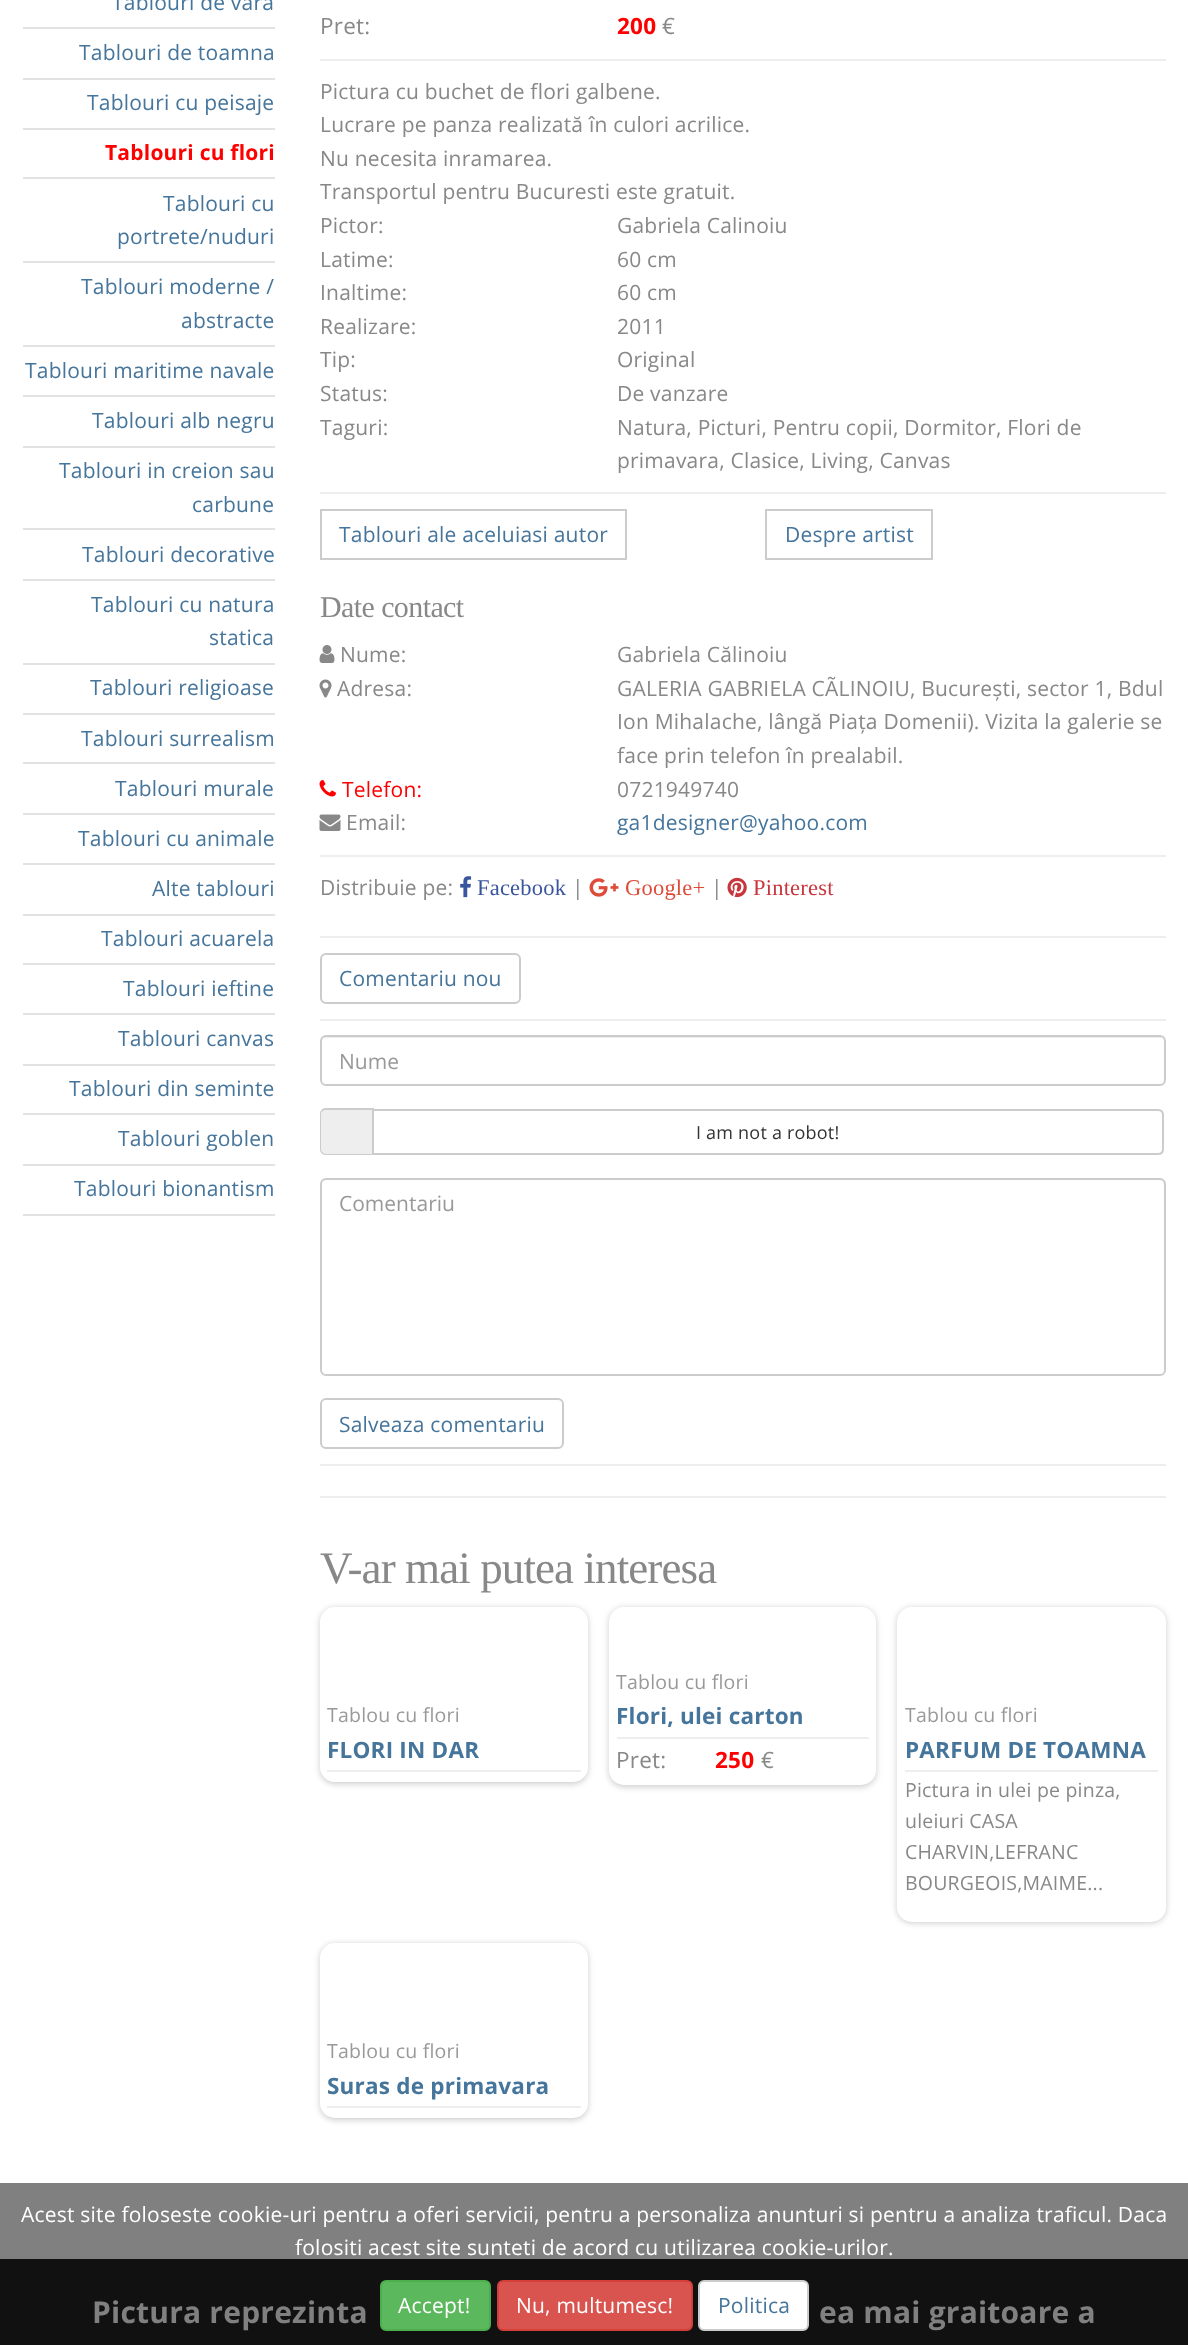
<svg xmlns="http://www.w3.org/2000/svg" width="1188" height="2345">
<rect width="100%" height="100%" fill="#fff"/>
<rect y="2183" width="1188" height="76" fill="#808080"/>
<rect x="23" y="27" width="252" height="2" fill="#e2e2e2"/>
<text x="112" y="10" style="font-family:Open Sans;font-size:21px;letter-spacing:0.21px;fill:#46759b">Tablouri de vara</text>
<rect x="23" y="78" width="252" height="2" fill="#e2e2e2"/>
<text x="79" y="60" style="font-family:Open Sans;font-size:21px;letter-spacing:0.21px;fill:#46759b">Tablouri de toamna</text>
<rect x="23" y="128" width="252" height="2" fill="#e2e2e2"/>
<text x="87" y="110" style="font-family:Open Sans;font-size:21px;letter-spacing:0.21px;fill:#46759b">Tablouri cu peisaje</text>
<rect x="23" y="177" width="252" height="2" fill="#e2e2e2"/>
<text x="105" y="160" style="font-family:Open Sans;font-size:21px;font-weight:bold;letter-spacing:0.21px;fill:#f00">Tablouri cu flori</text>
<rect x="23" y="261" width="252" height="2" fill="#e2e2e2"/>
<text x="163" y="211" style="font-family:Open Sans;font-size:21px;letter-spacing:0.21px;fill:#46759b">Tablouri cu</text>
<text x="117" y="244" style="font-family:Open Sans;font-size:21px;letter-spacing:0.21px;fill:#46759b">portrete/nuduri</text>
<rect x="23" y="345" width="252" height="2" fill="#e2e2e2"/>
<text x="81" y="294" style="font-family:Open Sans;font-size:21px;letter-spacing:0.21px;fill:#46759b">Tablouri moderne /</text>
<text x="181" y="328" style="font-family:Open Sans;font-size:21px;letter-spacing:0.21px;fill:#46759b">abstracte</text>
<rect x="23" y="395" width="252" height="2" fill="#e2e2e2"/>
<text x="25" y="378" style="font-family:Open Sans;font-size:21px;letter-spacing:0.21px;fill:#46759b">Tablouri maritime navale</text>
<rect x="23" y="446" width="252" height="2" fill="#e2e2e2"/>
<text x="92" y="428" style="font-family:Open Sans;font-size:21px;letter-spacing:0.21px;fill:#46759b">Tablouri alb negru</text>
<rect x="23" y="528" width="252" height="2" fill="#e2e2e2"/>
<text x="59" y="478" style="font-family:Open Sans;font-size:21px;letter-spacing:0.21px;fill:#46759b">Tablouri in creion sau</text>
<text x="192" y="512" style="font-family:Open Sans;font-size:21px;letter-spacing:0.21px;fill:#46759b">carbune</text>
<rect x="23" y="579" width="252" height="2" fill="#e2e2e2"/>
<text x="82" y="562" style="font-family:Open Sans;font-size:21px;letter-spacing:0.21px;fill:#46759b">Tablouri decorative</text>
<rect x="23" y="663" width="252" height="2" fill="#e2e2e2"/>
<text x="91" y="612" style="font-family:Open Sans;font-size:21px;letter-spacing:0.21px;fill:#46759b">Tablouri cu natura</text>
<text x="209" y="645" style="font-family:Open Sans;font-size:21px;letter-spacing:0.21px;fill:#46759b">statica</text>
<rect x="23" y="713" width="252" height="2" fill="#e2e2e2"/>
<text x="90" y="695" style="font-family:Open Sans;font-size:21px;letter-spacing:0.21px;fill:#46759b">Tablouri religioase</text>
<rect x="23" y="762" width="252" height="2" fill="#e2e2e2"/>
<text x="81" y="746" style="font-family:Open Sans;font-size:21px;letter-spacing:0.21px;fill:#46759b">Tablouri surrealism</text>
<rect x="23" y="813" width="252" height="2" fill="#e2e2e2"/>
<text x="115" y="796" style="font-family:Open Sans;font-size:21px;letter-spacing:0.21px;fill:#46759b">Tablouri murale</text>
<rect x="23" y="863" width="252" height="2" fill="#e2e2e2"/>
<text x="78" y="846" style="font-family:Open Sans;font-size:21px;letter-spacing:0.21px;fill:#46759b">Tablouri cu animale</text>
<rect x="23" y="914" width="252" height="2" fill="#e2e2e2"/>
<text x="152" y="896" style="font-family:Open Sans;font-size:21px;letter-spacing:0.21px;fill:#46759b">Alte tablouri</text>
<rect x="23" y="963" width="252" height="2" fill="#e2e2e2"/>
<text x="101" y="946" style="font-family:Open Sans;font-size:21px;letter-spacing:0.21px;fill:#46759b">Tablouri acuarela</text>
<rect x="23" y="1013" width="252" height="2" fill="#e2e2e2"/>
<text x="123" y="996" style="font-family:Open Sans;font-size:21px;letter-spacing:0.21px;fill:#46759b">Tablouri ieftine</text>
<rect x="23" y="1064" width="252" height="2" fill="#e2e2e2"/>
<text x="118" y="1046" style="font-family:Open Sans;font-size:21px;letter-spacing:0.21px;fill:#46759b">Tablouri canvas</text>
<rect x="23" y="1113" width="252" height="2" fill="#e2e2e2"/>
<text x="69" y="1096" style="font-family:Open Sans;font-size:21px;letter-spacing:0.21px;fill:#46759b">Tablouri din seminte</text>
<rect x="23" y="1164" width="252" height="2" fill="#e2e2e2"/>
<text x="118" y="1146" style="font-family:Open Sans;font-size:21px;letter-spacing:0.21px;fill:#46759b">Tablouri goblen</text>
<rect x="23" y="1214" width="252" height="2" fill="#e2e2e2"/>
<text x="74" y="1196" style="font-family:Open Sans;font-size:21px;letter-spacing:0.21px;fill:#46759b">Tablouri bionantism</text>
<text x="320" y="34" style="font-family:Open Sans;font-size:22.5px;letter-spacing:0.21px;fill:#888">Pret:</text>
<text x="617" y="34" style="font-family:Open Sans;font-size:22.5px;font-weight:bold;letter-spacing:0.21px;fill:#f00">200</text>
<text x="662" y="34" style="font-family:Open Sans;font-size:22.5px;letter-spacing:0.21px;fill:#888">€</text>
<rect x="320" y="59" width="846" height="2" fill="#eee"/>
<text x="320" y="99" style="font-family:Open Sans;font-size:21px;letter-spacing:0.21px;fill:#888">Pictura cu buchet de flori galbene.</text>
<text x="320" y="132" style="font-family:Open Sans;font-size:21px;letter-spacing:0.21px;fill:#888">Lucrare pe panza realizată în culori acrilice.</text>
<text x="320" y="166" style="font-family:Open Sans;font-size:21px;letter-spacing:0.21px;fill:#888">Nu necesita inramarea.</text>
<text x="320" y="199" style="font-family:Open Sans;font-size:21px;letter-spacing:0.21px;fill:#888">Transportul pentru Bucuresti este gratuit.</text>
<text x="320" y="233" style="font-family:Open Sans;font-size:21px;letter-spacing:0.21px;fill:#888">Pictor:</text>
<text x="617" y="233" style="font-family:Open Sans;font-size:21px;letter-spacing:0.21px;fill:#888">Gabriela Calinoiu</text>
<text x="320" y="267" style="font-family:Open Sans;font-size:21px;letter-spacing:0.21px;fill:#888">Latime:</text>
<text x="617" y="267" style="font-family:Open Sans;font-size:21px;letter-spacing:0.21px;fill:#888">60 cm</text>
<text x="320" y="300" style="font-family:Open Sans;font-size:21px;letter-spacing:0.21px;fill:#888">Inaltime:</text>
<text x="617" y="300" style="font-family:Open Sans;font-size:21px;letter-spacing:0.21px;fill:#888">60 cm</text>
<text x="320" y="334" style="font-family:Open Sans;font-size:21px;letter-spacing:0.21px;fill:#888">Realizare:</text>
<text x="617" y="334" style="font-family:Open Sans;font-size:21px;letter-spacing:0.21px;fill:#888">2011</text>
<text x="320" y="367" style="font-family:Open Sans;font-size:21px;letter-spacing:0.21px;fill:#888">Tip:</text>
<text x="617" y="367" style="font-family:Open Sans;font-size:21px;letter-spacing:0.21px;fill:#888">Original</text>
<text x="320" y="401" style="font-family:Open Sans;font-size:21px;letter-spacing:0.21px;fill:#888">Status:</text>
<text x="617" y="401" style="font-family:Open Sans;font-size:21px;letter-spacing:0.21px;fill:#888">De vanzare</text>
<text x="320" y="435" style="font-family:Open Sans;font-size:21px;letter-spacing:0.21px;fill:#888">Taguri:</text>
<text x="617" y="435" style="font-family:Open Sans;font-size:21px;letter-spacing:0.21px;fill:#888">Natura, Picturi, Pentru copii, Dormitor, Flori de</text>
<text x="617" y="468" style="font-family:Open Sans;font-size:21px;letter-spacing:0.21px;fill:#888">primavara, Clasice, Living, Canvas</text>
<rect x="320" y="492" width="846" height="2" fill="#eee"/>
<rect x="321" y="510" width="305" height="49" fill="none" stroke="#ccc" stroke-width="2"/>
<text x="339" y="542" style="font-family:Open Sans;font-size:21px;letter-spacing:0.21px;fill:#46759b">Tablouri ale aceluiasi autor</text>
<rect x="766" y="510" width="166" height="49" fill="none" stroke="#ccc" stroke-width="2"/>
<text x="785" y="542" style="font-family:Open Sans;font-size:21px;letter-spacing:0.21px;fill:#46759b">Despre artist</text>
<text x="320" y="617" style="font-family:Liberation Serif;font-size:30px;letter-spacing:-0.6px;fill:#888">Date contact</text>
<image x="319" y="645" width="16" height="18" href="media/1.png"/>
<text x="340" y="662" style="font-family:Open Sans;font-size:21px;letter-spacing:0.21px;fill:#888">Nume:</text>
<text x="617" y="662" style="font-family:Open Sans;font-size:21px;letter-spacing:0.21px;fill:#888">Gabriela Călinoiu</text>
<image x="319" y="679" width="13" height="19" href="media/2.png"/>
<text x="337" y="696" style="font-family:Open Sans;font-size:21px;letter-spacing:0.21px;fill:#888">Adresa:</text>
<text x="617" y="696" style="font-family:Open Sans;font-size:21px;letter-spacing:0.21px;fill:#888">GALERIA GABRIELA CÃLINOIU, București, sector 1, Bdul</text>
<text x="617" y="729" style="font-family:Open Sans;font-size:21px;letter-spacing:0.21px;fill:#888">Ion Mihalache, lângă Piața Domenii). Vizita la galerie se</text>
<text x="617" y="763" style="font-family:Open Sans;font-size:21px;letter-spacing:0.21px;fill:#888">face prin telefon în prealabil.</text>
<image x="319" y="780" width="17" height="17" href="media/3.png"/>
<text x="342" y="797" style="font-family:Open Sans;font-size:21px;letter-spacing:0.21px;fill:#f00">Telefon:</text>
<text x="617" y="797" style="font-family:Open Sans;font-size:21px;letter-spacing:0.21px;fill:#888">0721949740</text>
<image x="319" y="814" width="22" height="17" href="media/4.png"/>
<text x="346" y="830" style="font-family:Open Sans;font-size:21px;letter-spacing:0.21px;fill:#888">Email:</text>
<text x="617" y="830" style="font-family:Open Sans;font-size:21px;letter-spacing:0.21px;fill:#46759b">ga1designer@yahoo.com</text>
<rect x="320" y="855" width="846" height="2" fill="#eee"/>
<text x="320" y="895" style="font-family:Open Sans;font-size:21px;letter-spacing:0.21px;fill:#888">Distribuie pe:</text>
<image x="460" y="876" width="12" height="22" href="media/5.png"/>
<text x="477" y="895" style="font-family:Liberation Serif;font-size:22.5px;letter-spacing:0.21px;fill:#3a559f">Facebook</text>
<text x="572" y="895" style="font-family:Open Sans;font-size:21px;letter-spacing:0.21px;fill:#888">|</text>
<image x="589" y="878" width="30" height="19" href="media/6.png"/>
<text x="625" y="895" style="font-family:Liberation Serif;font-size:22.5px;letter-spacing:0.21px;fill:#dd4b39">Google+</text>
<text x="711" y="895" style="font-family:Open Sans;font-size:21px;letter-spacing:0.21px;fill:#888">|</text>
<image x="727" y="877" width="20" height="21" href="media/7.png"/>
<text x="753" y="895" style="font-family:Liberation Serif;font-size:22.5px;letter-spacing:0.21px;fill:#c9353d">Pinterest</text>
<rect x="320" y="936" width="846" height="2" fill="#eee"/>
<rect x="321" y="954" width="199" height="49" rx="5" fill="none" stroke="#ccc" stroke-width="2"/>
<text x="339" y="986" style="font-family:Open Sans;font-size:21px;letter-spacing:0.21px;fill:#46759b">Comentariu nou</text>
<rect x="320" y="1019" width="846" height="2" fill="#eee"/>
<path d="M326 1038h834c2 0 4 2 4 4c0-3-2-5-5-5h-833c-3 0-5 2-5 5c0-2 2-4 5-4z" fill="#ececec"/>
<rect x="321" y="1036" width="844" height="49" rx="5" fill="none" stroke="#ccc" stroke-width="2"/>
<text x="339" y="1069" style="font-family:Open Sans;font-size:21px;fill:#999">Nume</text>
<path d="M326 1109h48v46h-48c-3.5 0-6-2.5-6-6v-34c0-3.5 2.5-6 6-6z" fill="#eee"/>
<path d="M326 1108h48v47h-48c-4 0-6-3-6-6v-35c0-3 2-6 6-6zm0 2h48v44h-48c-3 0-5-3-5-5v-35c0-2 2-4 5-4z" fill="#ccc" fill-rule="evenodd"/>
<path d="M373 1110h785c3 0 5 2 5 5v34c0 3-2 5-5 5h-785z" fill="#fff" stroke="#ccc" stroke-width="2"/>
<text x="696" y="1139" style="font-family:Open Sans;font-size:18px;letter-spacing:0.21px;fill:#333">I am not a robot!</text>
<path d="M326 1180h834c2 0 4 3 4 5v-1c0-3-2-5-5-5h-833c-3 0-5 2-5 5v1c0-2 2-5 5-5z" fill="#ececec"/>
<rect x="321" y="1179" width="844" height="196" rx="5" fill="none" stroke="#ccc" stroke-width="2"/>
<text x="339" y="1211" style="font-family:Open Sans;font-size:21px;fill:#999">Comentariu</text>
<rect x="321" y="1399" width="242" height="49" rx="5" fill="none" stroke="#ccc" stroke-width="2"/>
<text x="339" y="1432" style="font-family:Open Sans;font-size:21px;letter-spacing:0.21px;fill:#46759b">Salveaza comentariu</text>
<rect x="320" y="1464" width="846" height="2" fill="#eee"/>
<rect x="320" y="1496" width="846" height="2" fill="#eee"/>
<text x="320" y="1583" style="font-family:Liberation Serif;font-size:45px;letter-spacing:-0.9px;fill:#888">V-ar mai putea interesa</text>
<rect x="320" y="1608" width="268" height="176" rx="15" fill="#00000033" filter="blur(3px)"/>
<rect x="320" y="1607" width="268" height="175" rx="15" fill="#fff"/>
<text x="327" y="1722" style="font-family:Open Sans;font-size:19.5px;letter-spacing:0.21px;fill:#999">Tablou cu flori</text>
<text x="327" y="1758" style="font-family:Open Sans;font-size:22.5px;font-weight:bold;letter-spacing:0.21px;fill:#46759b">FLORI IN DAR</text>
<rect x="327" y="1770" width="254" height="2" fill="#eee"/>
<rect x="609" y="1608" width="267" height="179" rx="15" fill="#00000033" filter="blur(3px)"/>
<rect x="609" y="1607" width="267" height="178" rx="15" fill="#fff"/>
<text x="616" y="1689" style="font-family:Open Sans;font-size:19.5px;letter-spacing:0.21px;fill:#999">Tablou cu flori</text>
<text x="616" y="1724" style="font-family:Open Sans;font-size:22.5px;font-weight:bold;letter-spacing:0.21px;fill:#46759b">Flori, ulei carton</text>
<rect x="617" y="1737" width="252" height="2" fill="#eee"/>
<text x="616" y="1768" style="font-family:Open Sans;font-size:22.5px;letter-spacing:0.21px;fill:#888">Pret:</text>
<text x="715" y="1768" style="font-family:Open Sans;font-size:22.5px;font-weight:bold;letter-spacing:0.21px;fill:#f00">250</text>
<text x="761" y="1768" style="font-family:Open Sans;font-size:22.5px;letter-spacing:0.21px;fill:#888">€</text>
<rect x="897" y="1608" width="269" height="315" rx="15" fill="#00000033" filter="blur(3px)"/>
<rect x="897" y="1607" width="269" height="315" rx="15" fill="#fff"/>
<text x="905" y="1722" style="font-family:Open Sans;font-size:19.5px;letter-spacing:0.21px;fill:#999">Tablou cu flori</text>
<text x="905" y="1758" style="font-family:Open Sans;font-size:22.5px;font-weight:bold;letter-spacing:0.21px;fill:#46759b">PARFUM DE TOAMNA</text>
<rect x="905" y="1770" width="253" height="2" fill="#eee"/>
<text x="905" y="1797" style="font-family:Open Sans;font-size:19.5px;letter-spacing:0.21px;fill:#888">Pictura in ulei pe pinza,</text>
<text x="905" y="1828" style="font-family:Open Sans;font-size:19.5px;letter-spacing:0.21px;fill:#888">uleiuri CASA</text>
<text x="905" y="1859" style="font-family:Open Sans;font-size:19.5px;letter-spacing:0.21px;fill:#888">CHARVIN,LEFRANC</text>
<text x="905" y="1890" style="font-family:Open Sans;font-size:19.5px;letter-spacing:0.21px;fill:#888">BOURGEOIS,MAIME...</text>
<rect x="320" y="1944" width="268" height="176" rx="15" fill="#00000033" filter="blur(3px)"/>
<rect x="320" y="1943" width="268" height="175" rx="15" fill="#fff"/>
<text x="327" y="2058" style="font-family:Open Sans;font-size:19.5px;letter-spacing:0.21px;fill:#999">Tablou cu flori</text>
<text x="327" y="2094" style="font-family:Open Sans;font-size:22.5px;font-weight:bold;letter-spacing:0.21px;fill:#46759b">Suras de primavara</text>
<rect x="327" y="2106" width="254" height="2" fill="#eee"/>
<text x="21" y="2222" style="font-family:Open Sans;font-size:21px;letter-spacing:0.21px;fill:#fff">Acest site foloseste cookie-uri pentru a oferi servicii, pentru a personaliza anunturi si pentru a analiza traficul. Daca</text>
<text x="295" y="2255" style="font-family:Open Sans;font-size:21px;letter-spacing:0.21px;fill:#fff">folositi acest site sunteti de acord cu utilizarea cookie-urilor.</text>
<rect y="2259" width="1188" height="86" fill="#111"/>
<rect x="381" y="2281" width="109" height="49" rx="5" fill="#5cb85c" stroke="#4cae4c" stroke-width="2"/>
<text x="398" y="2313" style="font-family:Open Sans;font-size:21px;letter-spacing:0.21px;fill:#fff">Accept!</text>
<rect x="498" y="2281" width="194" height="49" rx="5" fill="#d9534f" stroke="#d43f3a" stroke-width="2"/>
<text x="516" y="2313" style="font-family:Open Sans;font-size:21px;letter-spacing:0.21px;fill:#fff">Nu, multumesc!</text>
<rect x="699" y="2281" width="109" height="49" rx="5" fill="#fff" stroke="#ccc" stroke-width="2"/>
<text x="718" y="2313" style="font-family:Open Sans;font-size:21px;letter-spacing:0.21px;fill:#46759b">Politica</text>
<text x="92" y="2323" style="font-family:Open Sans;font-size:30px;font-weight:bold;letter-spacing:0.21px;fill:#808080">Pictura reprezinta</text>
<text x="819" y="2323" style="font-family:Open Sans;font-size:30px;font-weight:bold;letter-spacing:0.21px;fill:#808080">ea mai graitoare a</text>
</svg>
